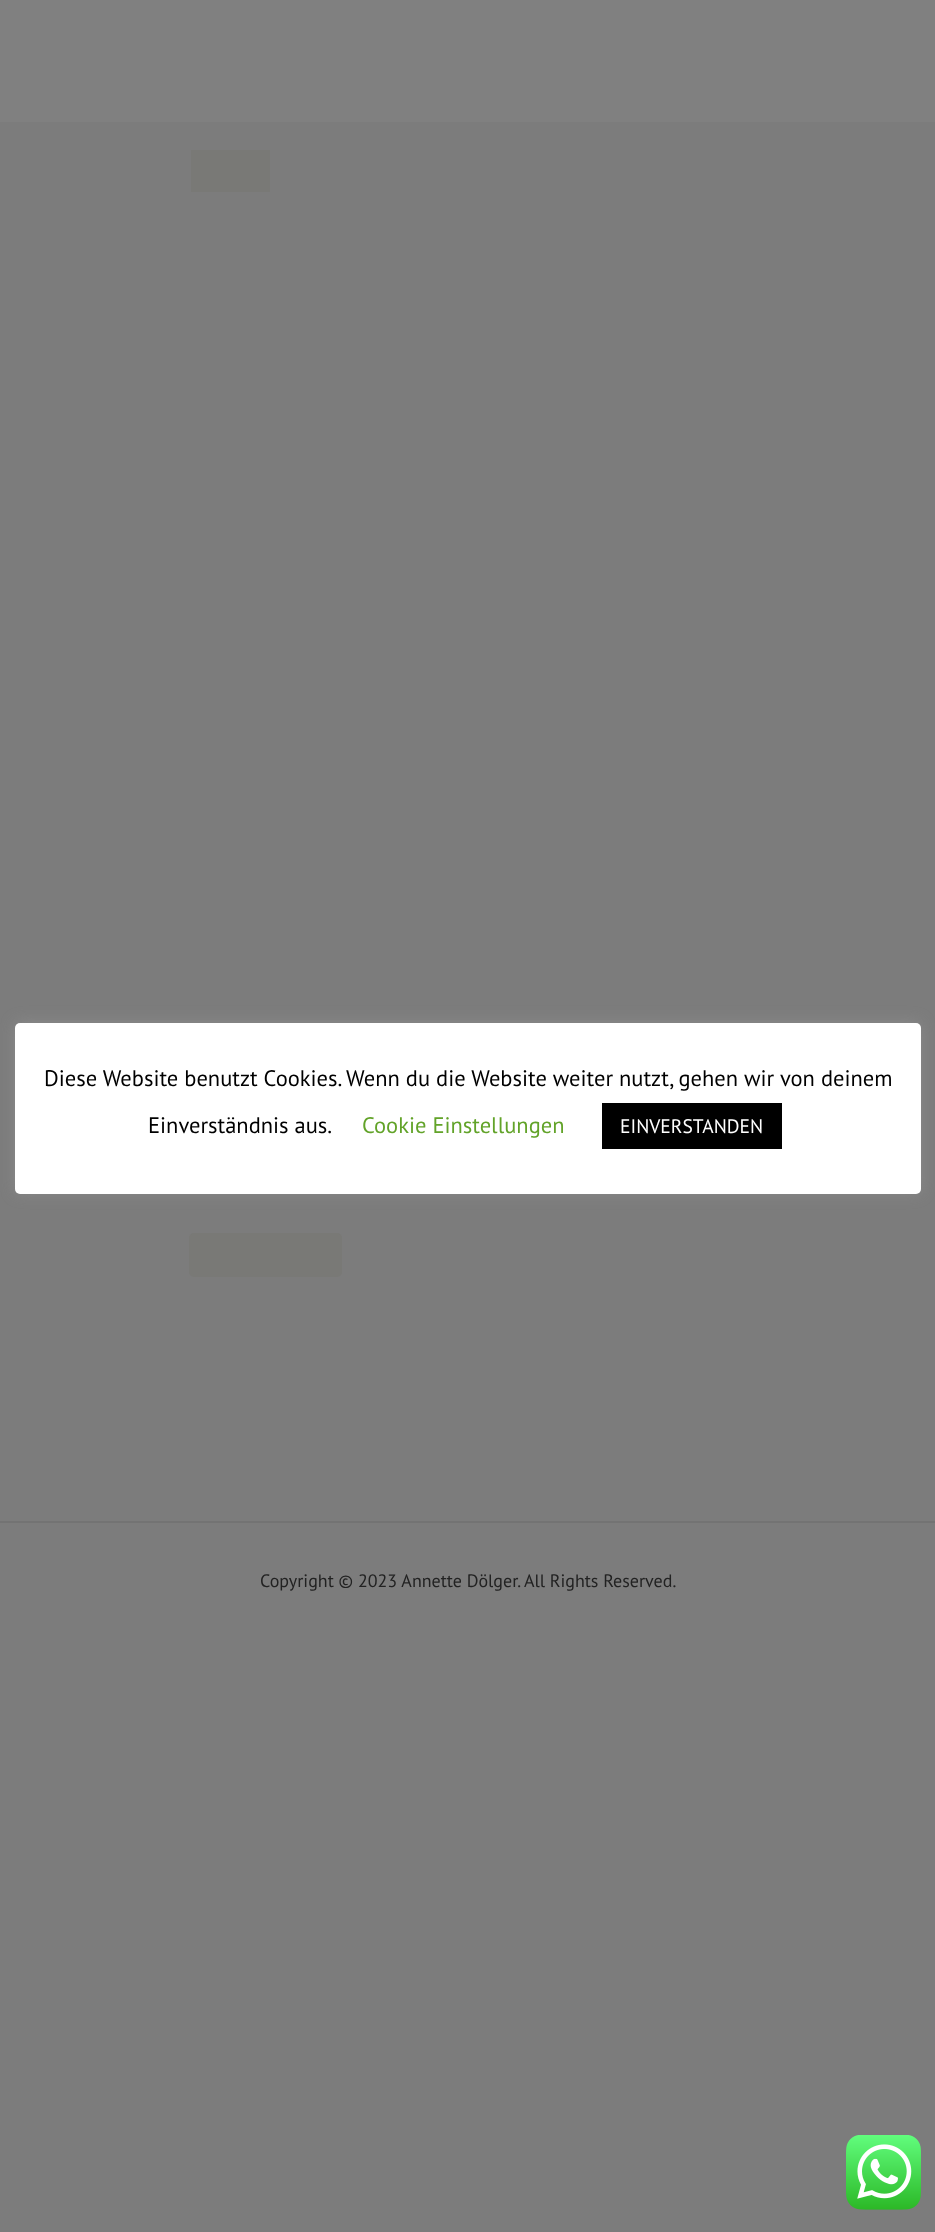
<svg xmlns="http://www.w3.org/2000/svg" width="935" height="2232">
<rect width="100%" height="100%" fill="#7c7c7c"/>
<rect x="15" y="1022" width="906" height="171" rx="5" fill="#acabab4d" filter="blur(7.5px)"/>
<rect x="15" y="1023" width="906" height="171" rx="5" fill="#fff"/>
<text x="44" y="1086" style="font-family:PT Sans;font-size:22.5px;fill:#000">Diese Website benutzt Cookies. Wenn du die Website weiter nutzt, gehen wir von deinem</text>
<text x="148" y="1133" style="font-family:PT Sans;font-size:22.5px;fill:#000">Einverständnis aus.</text>
<text x="362" y="1133" style="font-family:PT Sans;font-size:22.5px;fill:#62a329">Cookie Einstellungen</text>
<rect x="602" y="1103" width="180" height="46" fill="#000"/>
<text x="620" y="1133" style="font-family:PT Sans;font-size:19.5px;fill:#fff">EINVERSTANDEN</text>
<rect width="935" height="122" fill="#808080"/>
<rect x="191" y="150" width="79" height="42" fill="#797976"/>
<rect x="189" y="1233" width="153" height="44" rx="5" fill="#797976"/>
<rect y="1521" width="935" height="2" fill="#737373"/>
<text x="260" y="1587" style="font-family:PT Sans;font-size:18px;fill:#222">Copyright © 2023 Annette Dölger. All Rights Reserved.</text>
<image x="846" y="2135" width="75" height="75" href="media/1.png"/>
</svg>
